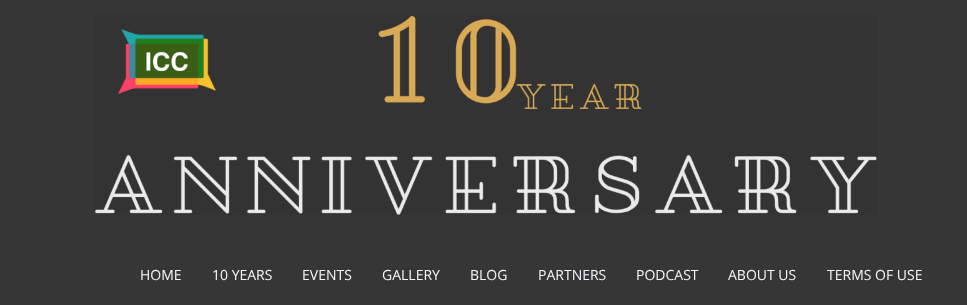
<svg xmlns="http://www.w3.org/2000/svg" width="967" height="305">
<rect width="100%" height="100%" fill="#363636"/>
<image x="95" y="15" width="782" height="200" href="media/1.png"/>
<text x="140" y="280" style="font-family:Open Sans;font-size:14px;fill:#f5f7fa">HOME</text>
<text x="212" y="280" style="font-family:Open Sans;font-size:14px;fill:#f5f7fa">10 YEARS</text>
<text x="302" y="280" style="font-family:Open Sans;font-size:14px;fill:#f5f7fa">EVENTS</text>
<text x="382" y="280" style="font-family:Open Sans;font-size:14px;fill:#f5f7fa">GALLERY</text>
<text x="470" y="280" style="font-family:Open Sans;font-size:14px;fill:#f5f7fa">BLOG</text>
<text x="538" y="280" style="font-family:Open Sans;font-size:14px;fill:#f5f7fa">PARTNERS</text>
<text x="636" y="280" style="font-family:Open Sans;font-size:14px;fill:#f5f7fa">PODCAST</text>
<text x="728" y="280" style="font-family:Open Sans;font-size:14px;fill:#f5f7fa">ABOUT US</text>
<text x="827" y="280" style="font-family:Open Sans;font-size:14px;fill:#f5f7fa">TERMS OF USE</text>
</svg>
